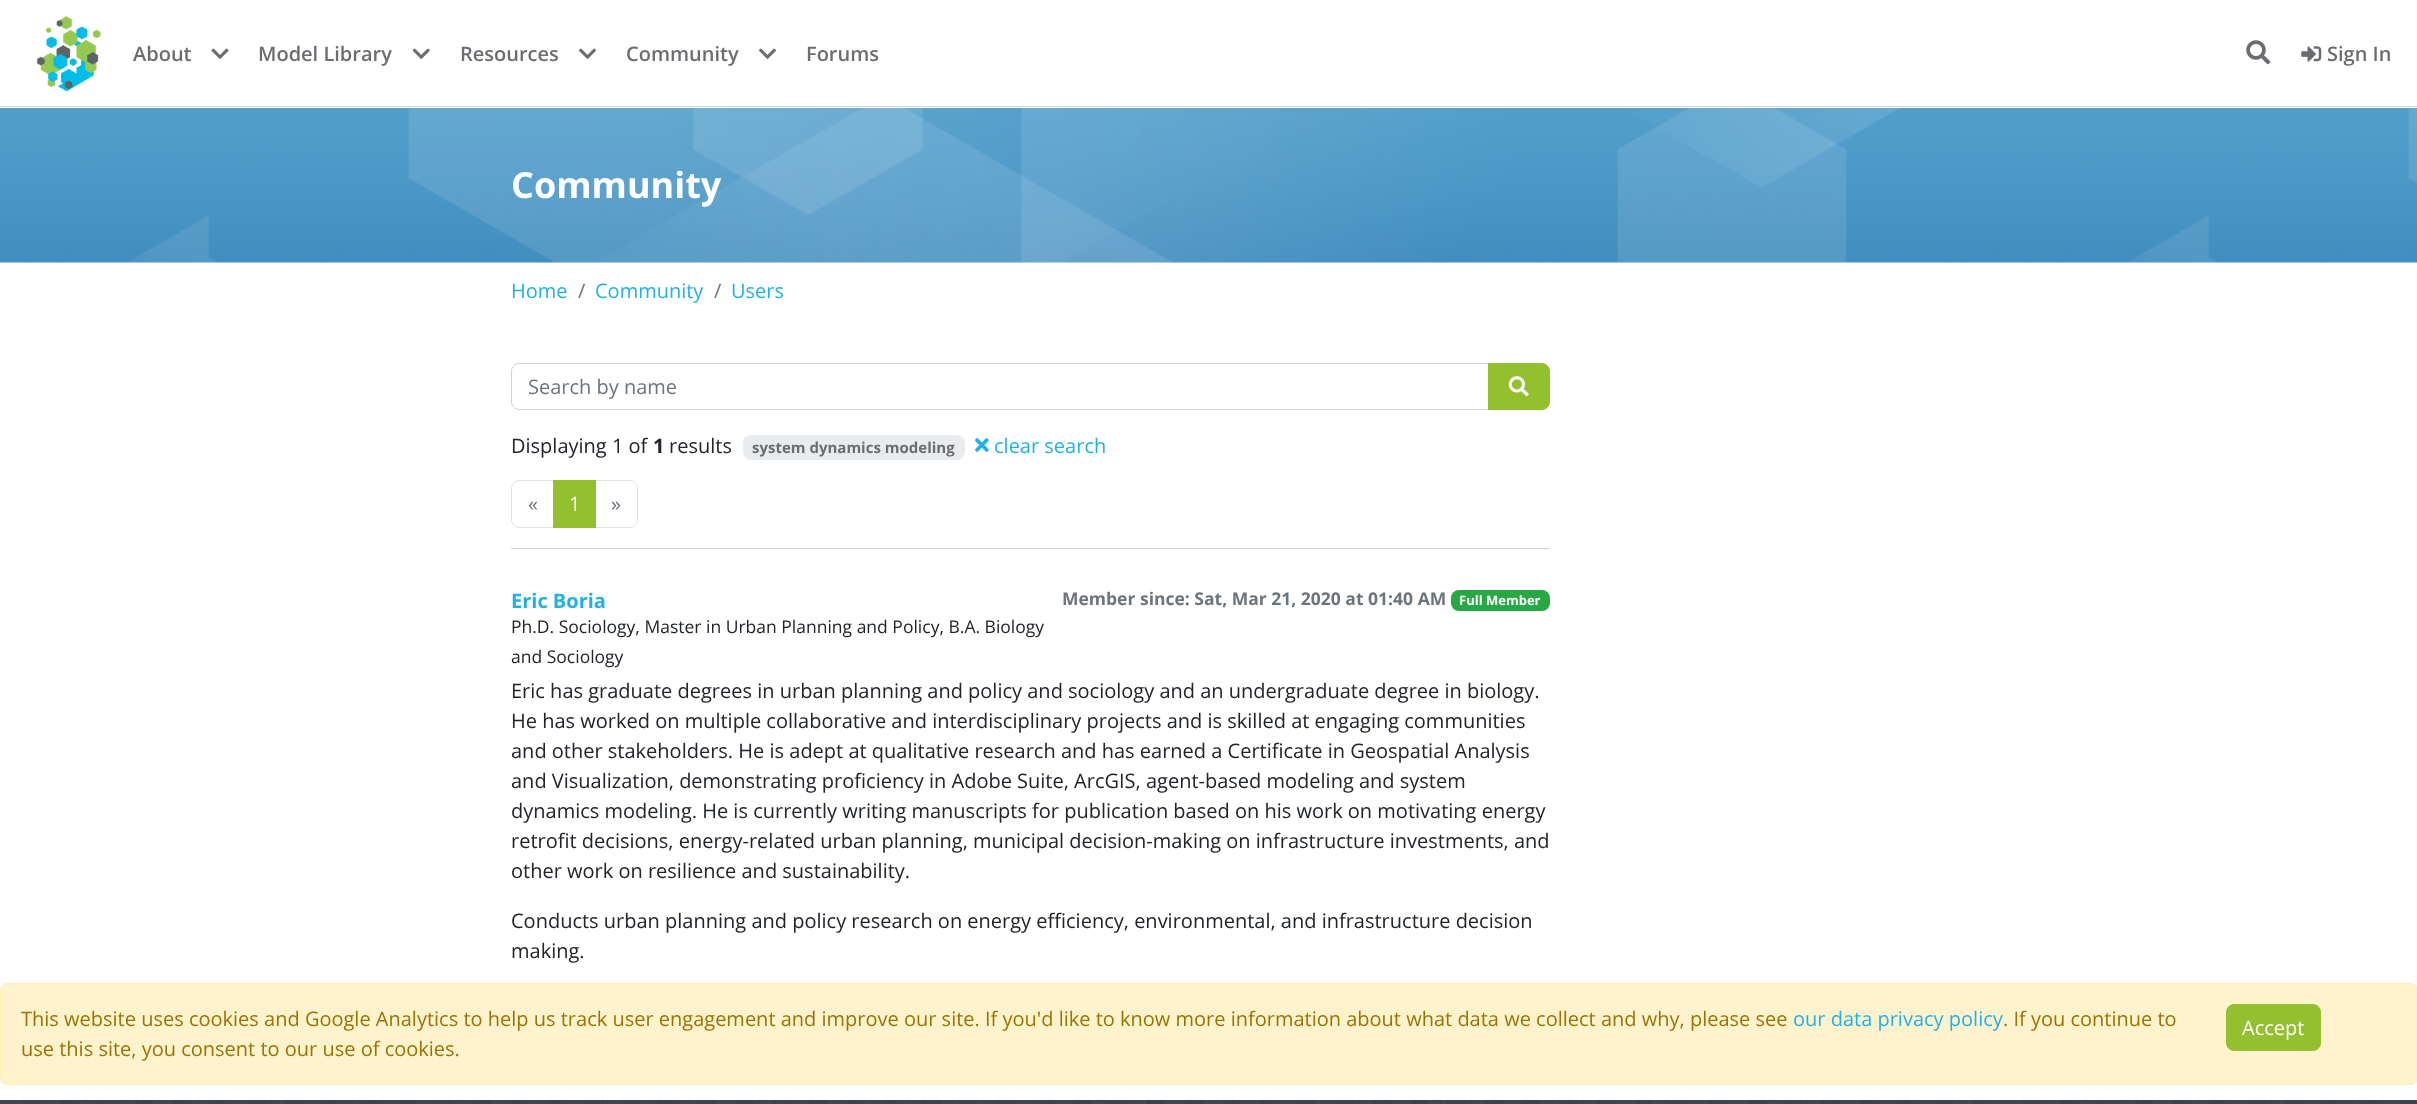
<svg xmlns="http://www.w3.org/2000/svg" width="2417" height="1104">
<rect width="100%" height="100%" fill="#fff"/>
<rect y="106" width="2417" height="1" fill="#d2d2d2"/>
<image x="37" y="16" width="64" height="76" href="media/1.png"/>
<text x="133" y="61" style="font-family:Open Sans;font-size:20px;font-weight:600;fill:#6d6c71">About</text>
<image x="211" y="48" width="18" height="11" href="media/2.png"/>
<text x="258" y="61" style="font-family:Open Sans;font-size:20px;font-weight:600;fill:#6d6c71">Model Library</text>
<image x="412" y="48" width="18" height="11" href="media/3.png"/>
<text x="460" y="61" style="font-family:Open Sans;font-size:20px;font-weight:600;fill:#6d6c71">Resources</text>
<image x="579" y="48" width="17" height="11" href="media/4.png"/>
<text x="626" y="61" style="font-family:Open Sans;font-size:20px;font-weight:600;fill:#6d6c71">Community</text>
<image x="759" y="48" width="17" height="11" href="media/4.png"/>
<text x="806" y="61" style="font-family:Open Sans;font-size:20px;font-weight:600;fill:#6d6c71">Forums</text>
<image x="2246" y="40" width="25" height="25" href="media/5.png"/>
<image x="2301" y="46" width="21" height="16" href="media/6.png"/>
<text x="2327" y="61" style="font-family:Open Sans;font-size:20px;font-weight:600;fill:#6d6c71">Sign In</text>
<image x="0" y="108" width="2417" height="155" href="media/7.png"/>
<text x="511" y="198" style="font-family:Open Sans;font-size:36px;font-weight:bold;fill:#fff">Community</text>
<text x="511" y="298" style="font-family:Open Sans;font-size:20px;fill:#22b1e6">Home</text>
<text x="578" y="298" style="font-family:Open Sans;font-size:20px;fill:#6c757d">/</text>
<text x="595" y="298" style="font-family:Open Sans;font-size:20px;fill:#22b1e6">Community</text>
<text x="714" y="298" style="font-family:Open Sans;font-size:20px;fill:#6c757d">/</text>
<text x="731" y="298" style="font-family:Open Sans;font-size:20px;fill:#22b1e6">Users</text>
<path d="M519 363.5h969.5v46h-969.5c-4 0-7.5-3.5-7.5-7.5v-31c0-4 3.5-7.5 7.5-7.5z" fill="none" stroke="#ced4da"/>
<text x="528" y="394" style="font-family:Open Sans;font-size:20px;fill:#6c757d">Search by name</text>
<path d="M1488.5 363.5h53.5c4 0 7.5 3.5 7.5 7.5v31c0 4-3.5 7.5-7.5 7.5h-53.5z" fill="#92c02e" stroke="#92c02e"/>
<image x="1508" y="376" width="21" height="21" href="media/8.png"/>
<text x="511" y="453" style="font-family:Open Sans;font-size:20px;fill:#212529">Displaying 1 of</text>
<text x="653" y="453" style="font-family:Open Sans;font-size:20px;font-weight:bold;fill:#212529">1</text>
<text x="669" y="453" style="font-family:Open Sans;font-size:20px;fill:#212529">results</text>
<rect x="743" y="435" width="222" height="25" rx="8" fill="#e9ecef"/>
<text x="752" y="453" style="font-family:Open Sans;font-size:15px;font-weight:bold;fill:#6d6c71">system dynamics modeling</text>
<image x="975" y="438" width="14" height="14" href="media/9.png"/>
<text x="994" y="453" style="font-family:Open Sans;font-size:20px;fill:#22b1e6">clear search</text>
<path d="M519 480.5h34.5v47h-34.5c-4 0-7.5-3.5-7.5-7.5v-32c0-4 3.5-7.5 7.5-7.5z" fill="none" stroke="#dee2e6"/>
<text x="528" y="511" style="font-family:Open Sans;font-size:20px;fill:#6c757d">«</text>
<path d="M595.5 480.5h34.5c4 0 7.5 3.5 7.5 7.5v32c0 4-3.5 7.5-7.5 7.5h-34.5z" fill="none" stroke="#dee2e6"/>
<rect x="553" y="480" width="43" height="48" fill="#92c02e"/>
<text x="569" y="511" style="font-family:Open Sans;font-size:20px;fill:#fff">1</text>
<text x="611" y="511" style="font-family:Open Sans;font-size:20px;fill:#6c757d">»</text>
<rect x="511" y="548" width="1039" height="1" fill="#d2d2d2"/>
<text x="511" y="608" style="font-family:Open Sans;font-size:20px;font-weight:bold;fill:#22b1e6">Eric Boria</text>
<text x="1062" y="605" style="font-family:Open Sans;font-size:17.5px;font-weight:bold;fill:#6c757d">Member since: Sat, Mar 21, 2020 at 01:40 AM</text>
<rect x="1451" y="590" width="99" height="21" rx="8" fill="#28a745"/>
<text x="1459" y="605" style="font-family:Open Sans;font-size:13px;font-weight:bold;fill:#fff">Full Member</text>
<text x="511" y="633" style="font-family:Open Sans;font-size:17.5px;fill:#212529">Ph.D. Sociology, Master in Urban Planning and Policy, B.A. Biology</text>
<text x="511" y="663" style="font-family:Open Sans;font-size:17.5px;fill:#212529">and Sociology</text>
<text x="511" y="698" style="font-family:Open Sans;font-size:20px;fill:#212529">Eric has graduate degrees in urban planning and policy and sociology and an undergraduate degree in biology.</text>
<text x="511" y="728" style="font-family:Open Sans;font-size:20px;fill:#212529">He has worked on multiple collaborative and interdisciplinary projects and is skilled at engaging communities</text>
<text x="511" y="758" style="font-family:Open Sans;font-size:20px;fill:#212529">and other stakeholders. He is adept at qualitative research and has earned a Certificate in Geospatial Analysis</text>
<text x="511" y="788" style="font-family:Open Sans;font-size:20px;fill:#212529">and Visualization, demonstrating proficiency in Adobe Suite, ArcGIS, agent-based modeling and system</text>
<text x="511" y="818" style="font-family:Open Sans;font-size:20px;fill:#212529">dynamics modeling. He is currently writing manuscripts for publication based on his work on motivating energy</text>
<text x="511" y="848" style="font-family:Open Sans;font-size:20px;fill:#212529">retrofit decisions, energy-related urban planning, municipal decision-making on infrastructure investments, and</text>
<text x="511" y="878" style="font-family:Open Sans;font-size:20px;fill:#212529">other work on resilience and sustainability.</text>
<text x="511" y="928" style="font-family:Open Sans;font-size:20px;fill:#212529">Conducts urban planning and policy research on energy efficiency, environmental, and infrastructure decision</text>
<text x="511" y="958" style="font-family:Open Sans;font-size:20px;fill:#212529">making.</text>
<rect x="0.5" y="983.5" width="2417" height="101" rx="7.5" fill="#fff3cd" stroke="#ffecb5"/>
<text x="21" y="1026" style="font-family:Open Sans;font-size:20px;fill:#997404">This website uses cookies and Google Analytics to help us track user engagement and improve our site. If you'd like to know more information about what data we collect and why, please see</text>
<text x="1793" y="1026" style="font-family:Open Sans;font-size:20px;fill:#22b1e6">our data privacy policy</text>
<text x="2003" y="1026" style="font-family:Open Sans;font-size:20px;fill:#997404">. If you continue to</text>
<text x="21" y="1056" style="font-family:Open Sans;font-size:20px;fill:#997404">use this site, you consent to our use of cookies.</text>
<rect x="2226.5" y="1004.5" width="94" height="46" rx="7.5" fill="#92c02e" stroke="#92c02e"/>
<text x="2242" y="1035" style="font-family:Open Sans;font-size:20px;fill:#fff">Accept</text>
<image x="0" y="1100" width="2417" height="4" href="media/10.png"/>
</svg>
